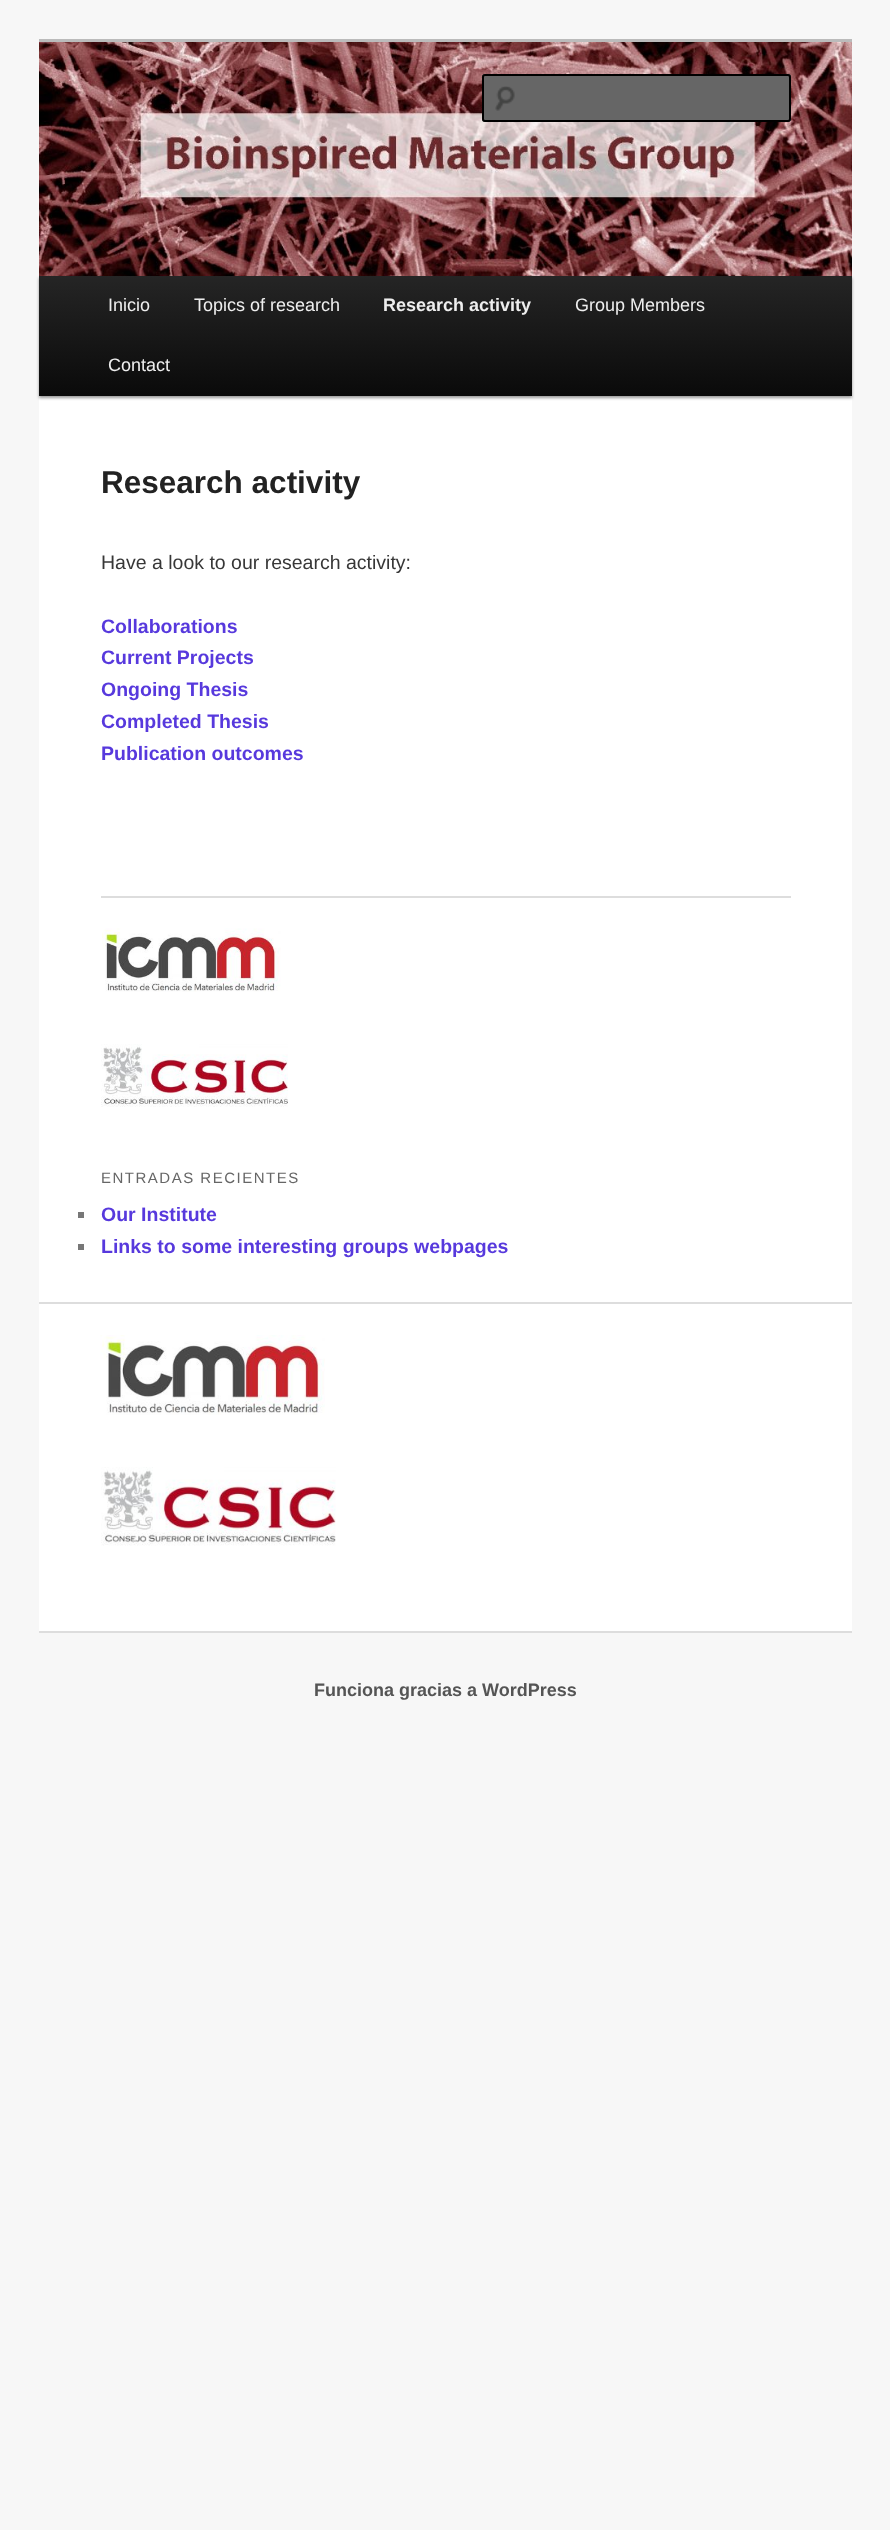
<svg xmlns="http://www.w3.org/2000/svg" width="890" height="2530">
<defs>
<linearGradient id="g1" gradientUnits="userSpaceOnUse" x1="446" y1="276" x2="446" y2="396"><stop offset="0" stop-color="#252525"/><stop offset="1" stop-color="#0a0a0a"/></linearGradient>
</defs>
<rect width="100%" height="100%" fill="#f7f7f7"/>
<rect x="39" y="396" width="813" height="1235" fill="#fff"/>
<rect x="39" y="39" width="813" height="3" fill="#bbb"/>
<rect x="39" y="278" width="813" height="120" fill="#00000066" filter="blur(1.5px)"/>
<image x="39" y="42" width="813" height="234" href="media/1.png"/>
<rect x="482" y="74" width="309" height="48" rx="3" fill="#666"/>
<image x="495" y="86" width="20" height="25" href="media/2.png"/>
<path d="M484 76h304l1 2v-2l-1-1h-304c-1 0-1 2-1 3z" fill="#5c5c5c"/>
<rect x="483" y="75" width="307" height="46" rx="2" fill="none" stroke="#000" stroke-width="2"/>
<rect x="39" y="276" width="813" height="120" fill="url(#g1)"/>
<text x="108" y="311" style="font-family:Liberation Sans;font-size:18px;fill:#eee">Inicio</text>
<text x="194" y="311" style="font-family:Liberation Sans;font-size:18px;fill:#eee">Topics of research</text>
<text x="383" y="311" style="font-family:Liberation Sans;font-size:18px;font-weight:bold;fill:#eee">Research activity</text>
<text x="575" y="311" style="font-family:Liberation Sans;font-size:18px;fill:#eee">Group Members</text>
<text x="108" y="371" style="font-family:Liberation Sans;font-size:18px;fill:#eee">Contact</text>
<rect x="101" y="896" width="690" height="2" fill="#ddd"/>
<text x="101" y="493" style="font-family:Liberation Sans;font-size:31.5px;font-weight:bold;fill:#222">Research activity</text>
<text x="101" y="569" style="font-family:Liberation Sans;font-size:19.5px;fill:#373737">Have a look to our research activity:</text>
<text x="101" y="633" style="font-family:Liberation Sans;font-size:19.5px;font-weight:bold;fill:#5739dd">Collaborations</text>
<text x="101" y="664" style="font-family:Liberation Sans;font-size:19.5px;font-weight:bold;fill:#5739dd">Current Projects</text>
<text x="101" y="696" style="font-family:Liberation Sans;font-size:19.5px;font-weight:bold;fill:#5739dd">Ongoing Thesis</text>
<text x="101" y="728" style="font-family:Liberation Sans;font-size:19.5px;font-weight:bold;fill:#5739dd">Completed Thesis</text>
<text x="101" y="760" style="font-family:Liberation Sans;font-size:19.5px;font-weight:bold;fill:#5739dd">Publication outcomes</text>
<image x="102" y="928" width="179" height="64" href="media/3.png"/>
<image x="101" y="1044" width="187" height="63" href="media/4.png"/>
<text x="101" y="1183" style="font-family:Liberation Sans;font-size:15px;letter-spacing:1.5px;fill:#666">ENTRADAS RECIENTES</text>
<rect x="78" y="1212" width="6" height="6" fill="#777"/>
<text x="101" y="1221" style="font-family:Liberation Sans;font-size:19.5px;font-weight:bold;fill:#5739dd">Our Institute</text>
<rect x="78" y="1244" width="6" height="6" fill="#777"/>
<text x="101" y="1253" style="font-family:Liberation Sans;font-size:19.5px;font-weight:bold;fill:#5739dd">Links to some interesting groups webpages</text>
<rect x="39" y="1302" width="813" height="2" fill="#ddd"/>
<image x="100" y="1335" width="225" height="80" href="media/5.png"/>
<image x="101" y="1467" width="235" height="79" href="media/6.png"/>
<rect x="39" y="1631" width="813" height="2" fill="#ddd"/>
<text x="314" y="1696" style="font-family:Liberation Sans;font-size:18px;font-weight:bold;fill:#555">Funciona gracias a WordPress</text>
</svg>
